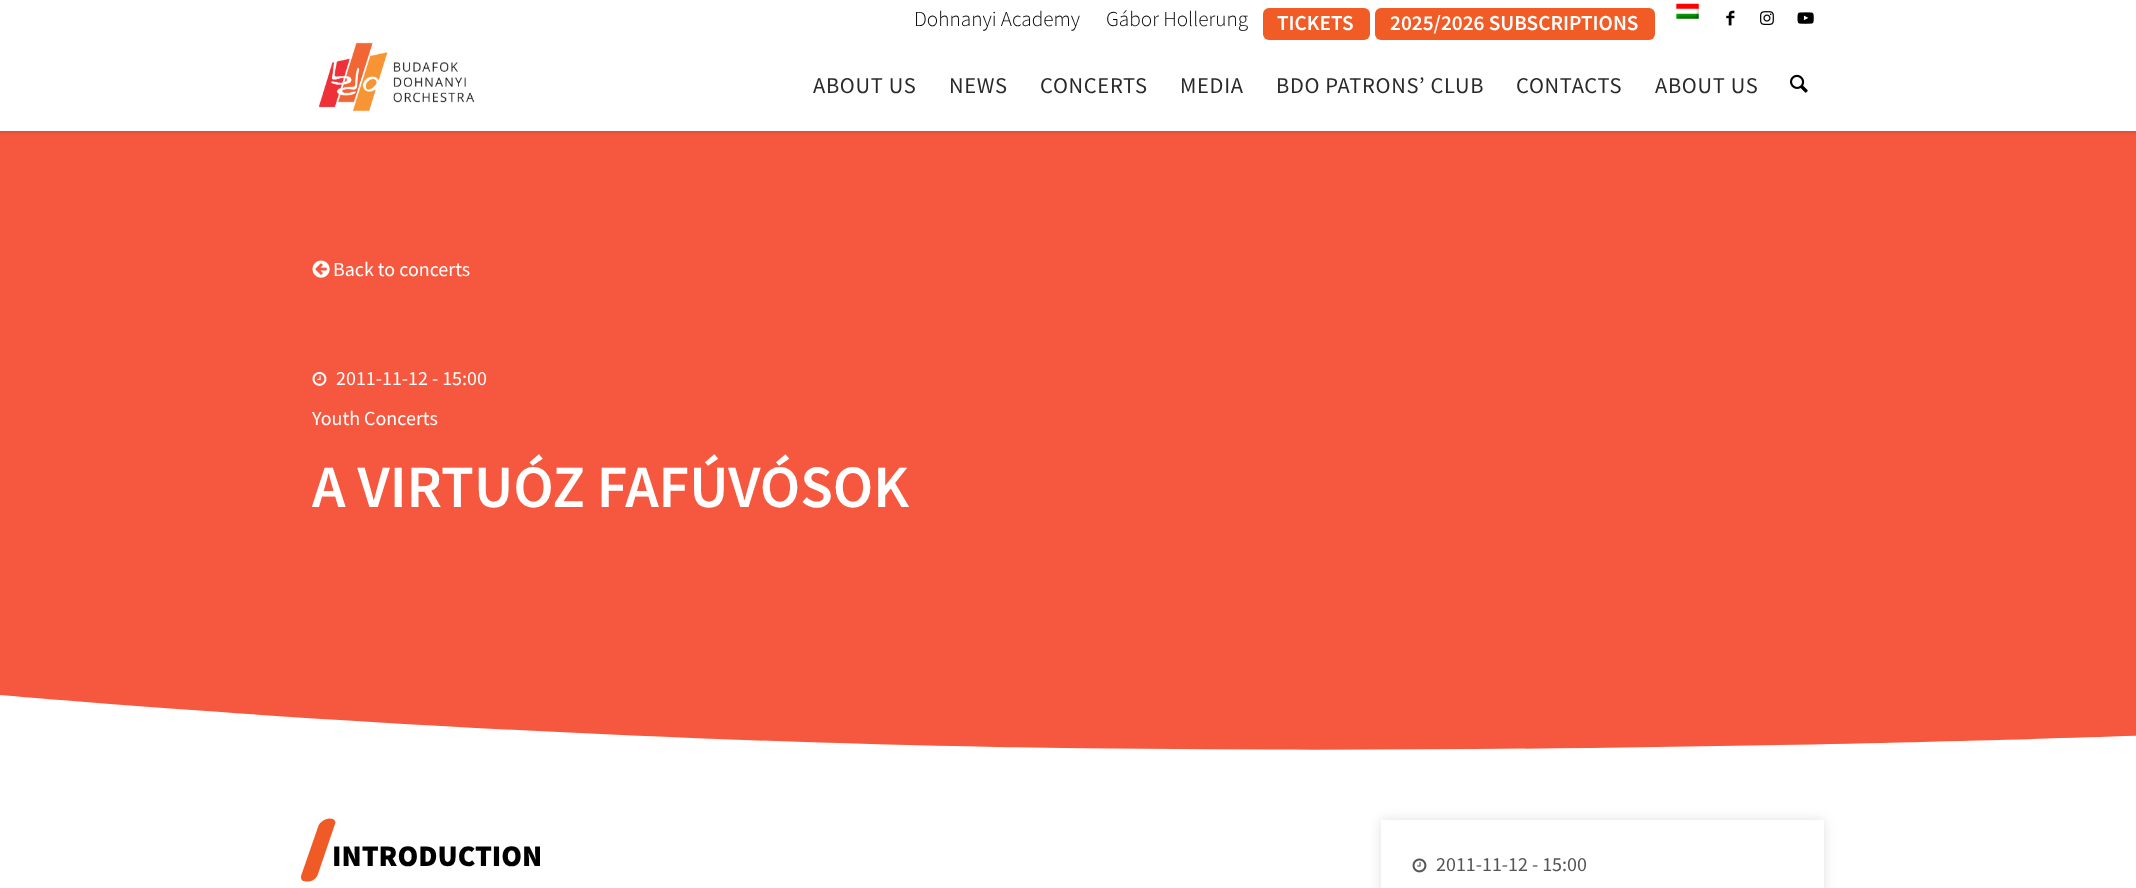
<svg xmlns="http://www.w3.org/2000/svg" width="2136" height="888">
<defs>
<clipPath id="clip1"><rect x="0" y="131" width="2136" height="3"/></clipPath>
<clipPath id="clip2"><rect y="683" width="2136" height="75"/></clipPath>
</defs>
<rect width="100%" height="100%" fill="#fff"/>
<rect y="131" width="2136" height="619" fill="#f5583e"/>
<g clip-path="url(#clip1)">
<rect x="-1" y="-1" width="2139" height="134" fill="#0000001a" filter="blur(1px)"/>
</g>
<text x="914" y="26" style="font-family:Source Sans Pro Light;font-size:21.25px;font-weight:300;fill:#000">Dohnanyi Academy</text>
<text x="1106" y="26" style="font-family:Source Sans Pro Light;font-size:21.25px;font-weight:300;fill:#000">Gábor Hollerung</text>
<rect x="1263" y="8" width="107" height="32" rx="6" fill="#f05b26"/>
<text x="1277" y="30" style="font-family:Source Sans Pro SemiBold;font-size:21.25px;font-weight:600;fill:#fff">TICKETS</text>
<rect x="1375" y="8" width="280" height="32" rx="6" fill="#f05b26"/>
<text x="1390" y="30" style="font-family:Source Sans Pro SemiBold;font-size:21.25px;font-weight:600;fill:#fff">2025/2026 SUBSCRIPTIONS</text>
<image x="1676" y="3" width="23" height="16" href="media/1.png"/>
<image x="1726" y="10" width="9" height="16" href="media/2.png"/>
<image x="1760" y="11" width="14" height="14" href="media/3.png"/>
<image x="1797" y="12" width="17" height="12" href="media/4.png"/>
<image x="318" y="42" width="157" height="70" href="media/5.png"/>
<text x="813" y="93" style="font-family:Source Sans Pro;font-size:22.5px;letter-spacing:0.7px;fill:#2b2828">ABOUT US</text>
<text x="949" y="93" style="font-family:Source Sans Pro;font-size:22.5px;letter-spacing:0.7px;fill:#2b2828">NEWS</text>
<text x="1040" y="93" style="font-family:Source Sans Pro;font-size:22.5px;letter-spacing:0.7px;fill:#2b2828">CONCERTS</text>
<text x="1180" y="93" style="font-family:Source Sans Pro;font-size:22.5px;letter-spacing:0.7px;fill:#2b2828">MEDIA</text>
<text x="1276" y="93" style="font-family:Source Sans Pro;font-size:22.5px;letter-spacing:0.7px;fill:#2b2828">BDO PATRONS’ CLUB</text>
<text x="1516" y="93" style="font-family:Source Sans Pro;font-size:22.5px;letter-spacing:0.7px;fill:#2b2828">CONTACTS</text>
<text x="1655" y="93" style="font-family:Source Sans Pro;font-size:22.5px;letter-spacing:0.7px;fill:#2b2828">ABOUT US</text>
<image x="1790" y="74" width="18" height="19" href="media/6.png"/>
<image x="312" y="260" width="18" height="18" href="media/7.png"/>
<text x="333" y="276" style="font-family:Source Sans Pro;font-size:20px;fill:#fff">Back to concerts</text>
<image x="312" y="371" width="15" height="15" href="media/8.png"/>
<text x="336" y="385" style="font-family:Source Sans Pro;font-size:20px;fill:#fff">2011-11-12 - 15:00</text>
<text x="312" y="425" style="font-family:Source Sans Pro;font-size:20px;fill:#fff">Youth Concerts</text>
<text x="312" y="507" style="font-family:Source Sans Pro SemiBold;font-size:60px;font-weight:600;fill:#fff">A VIRTUÓZ FAFÚVÓSOK</text>
<g clip-path="url(#clip2)">
<path d="M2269 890h-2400v-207c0 0 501 52 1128 64c627 11 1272-16 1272-16z" fill="#fff"/>
</g>
<text x="332" y="866" style="font-family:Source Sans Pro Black;font-size:30px;font-weight:900;fill:#000">INTRODUCTION</text>
<path d="M301 876l17-49c2-6 9-10 15-8c2 1 3 3 2 5l-17 50c-2 6-8 9-14 7h-1c-2-1-2-3-2-5z" fill="#f05a26"/>
<rect x="1381" y="820" width="443" height="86" fill="#e0e0e0" filter="blur(6px)"/>
<rect x="1381" y="820" width="443" height="68" fill="#fff"/>
<image x="1412" y="858" width="15" height="15" href="media/9.png"/>
<text x="1436" y="871" style="font-family:Source Sans Pro;font-size:20px;fill:#555">2011-11-12 - 15:00</text>
</svg>
